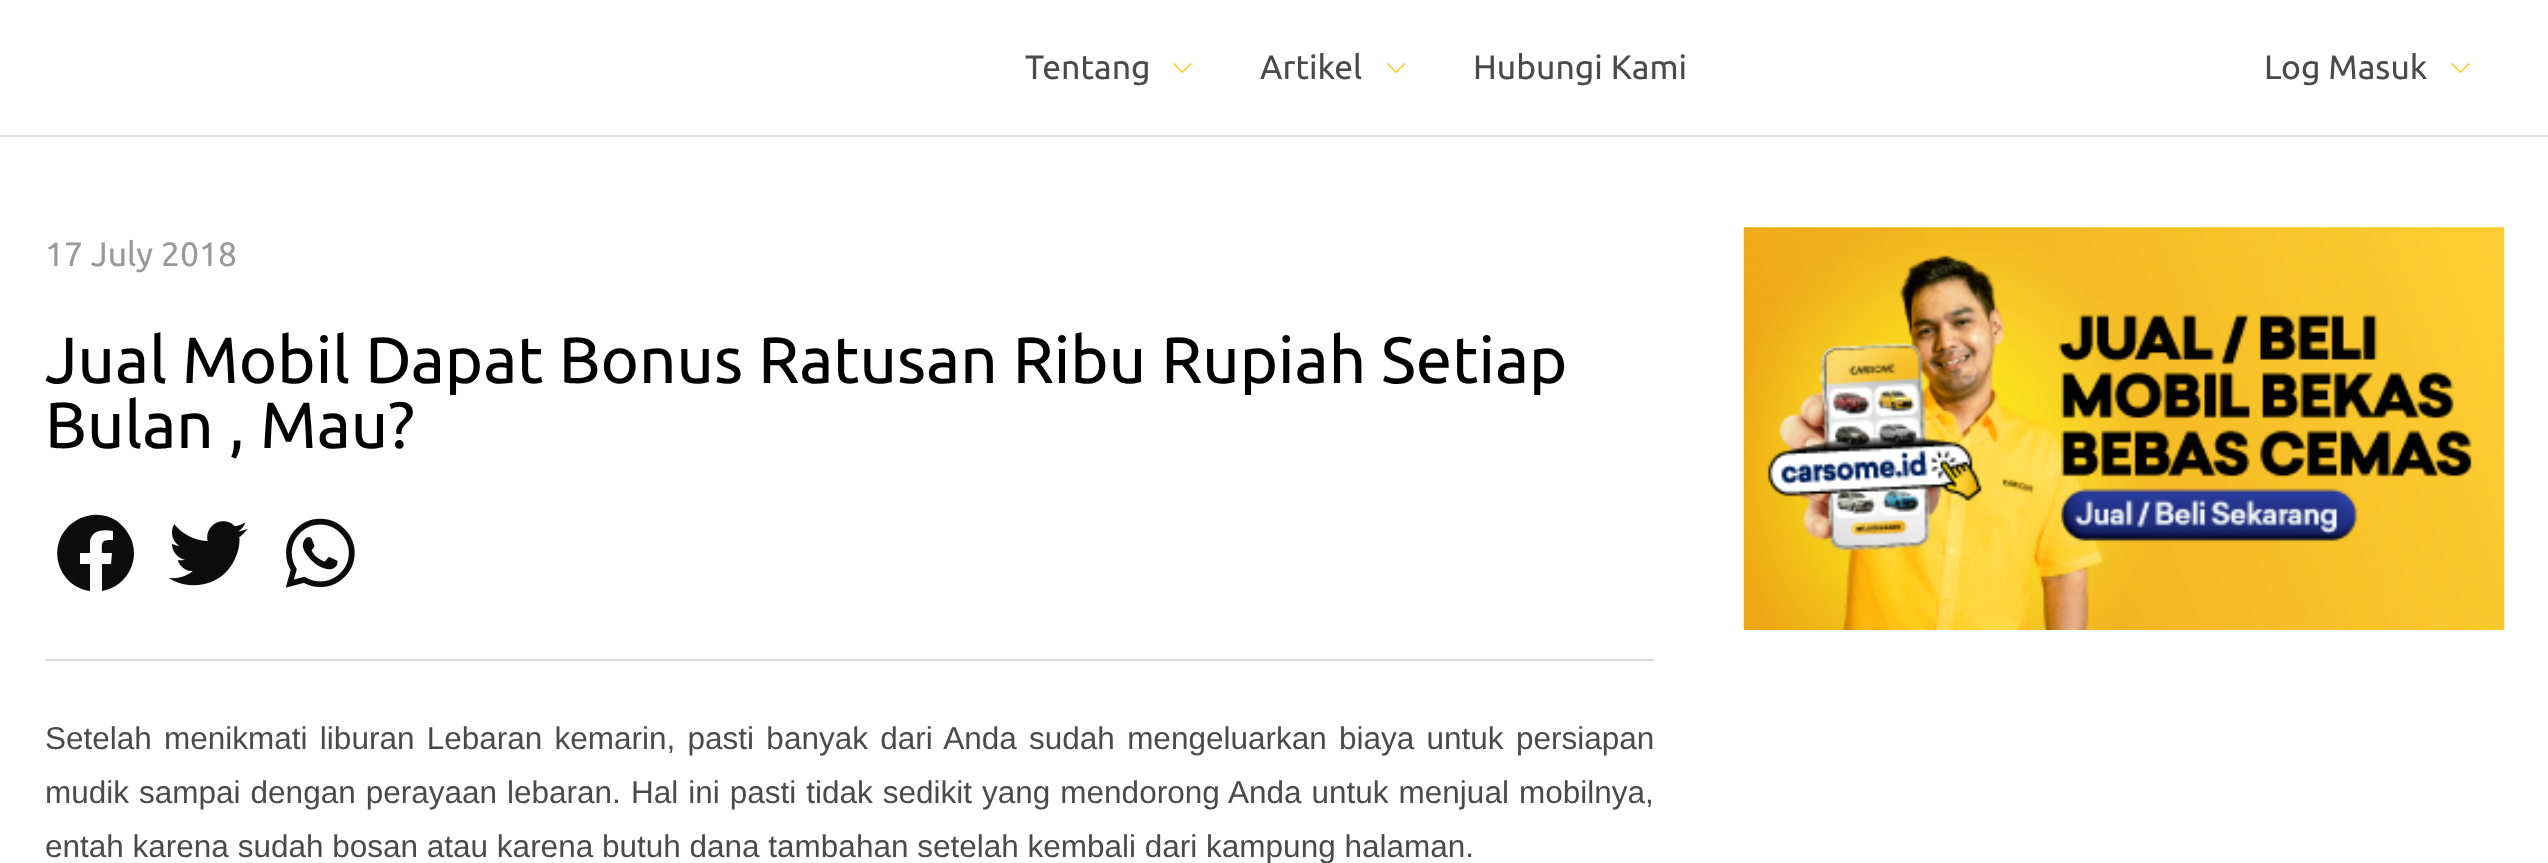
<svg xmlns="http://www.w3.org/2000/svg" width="2548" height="863">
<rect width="100%" height="100%" fill="#fff"/>
<rect y="135" width="2548" height="2" fill="#ddd"/>
<text x="1025" y="79" style="font-family:Ubuntu;font-size:33.75px;fill:#4a4a4a">Tentang</text>
<image x="1173" y="63" width="19" height="10" href="media/1.png"/>
<text x="1260" y="79" style="font-family:Ubuntu;font-size:33.75px;fill:#4a4a4a">Artikel</text>
<image x="1387" y="63" width="19" height="10" href="media/2.png"/>
<text x="1473" y="79" style="font-family:Ubuntu;font-size:33.75px;fill:#4a4a4a">Hubungi Kami</text>
<text x="2264" y="79" style="font-family:Ubuntu;font-size:33.75px;fill:#4a4a4a">Log Masuk</text>
<image x="2451" y="63" width="19" height="10" href="media/1.png"/>
<text x="45" y="266" style="font-family:Ubuntu;font-size:33.75px;fill:#999">17 July 2018</text>
<text x="45" y="383" style="font-family:Ubuntu;font-size:65.25px;fill:#000">Jual Mobil Dapat Bonus Ratusan Ribu Rupiah Setiap</text>
<text x="45" y="448" style="font-family:Ubuntu;font-size:65.25px;fill:#000">Bulan , Mau?</text>
<path d="M134 553c0 19-14 35-32 38v-27h9l1-11h-10c0-11-2-13 11-13v-9c-10-2-21-1-23 10v12h-10v11h10v27c-33-5-44-46-19-67c6-5 13-8 21-9c9-1 17 1 25 6c10 8 17 19 17 32z" fill="#0c0c0c"/>
<image x="169" y="521" width="79" height="65" href="media/3.png"/>
<image x="285" y="518" width="70" height="70" href="media/4.png"/>
<rect x="45" y="659" width="1609" height="2" fill="#dbdbdb"/>
<text x="45" y="749" word-spacing="3.5" style="font-family:Liberation Sans;font-size:31.5px;fill:#4a4a4a">Setelah menikmati liburan Lebaran kemarin, pasti banyak dari Anda sudah mengeluarkan biaya untuk persiapan</text>
<text x="45" y="803" word-spacing="1.25" style="font-family:Liberation Sans;font-size:31.5px;fill:#4a4a4a">mudik sampai dengan perayaan lebaran. Hal ini pasti tidak sedikit yang mendorong Anda untuk menjual mobilnya,</text>
<text x="45" y="857" style="font-family:Liberation Sans;font-size:31.5px;fill:#4a4a4a">entah karena sudah bosan atau karena butuh dana tambahan setelah kembali dari kampung halaman.</text>
<image x="1743" y="227" width="762" height="403" href="media/5.png"/>
</svg>
